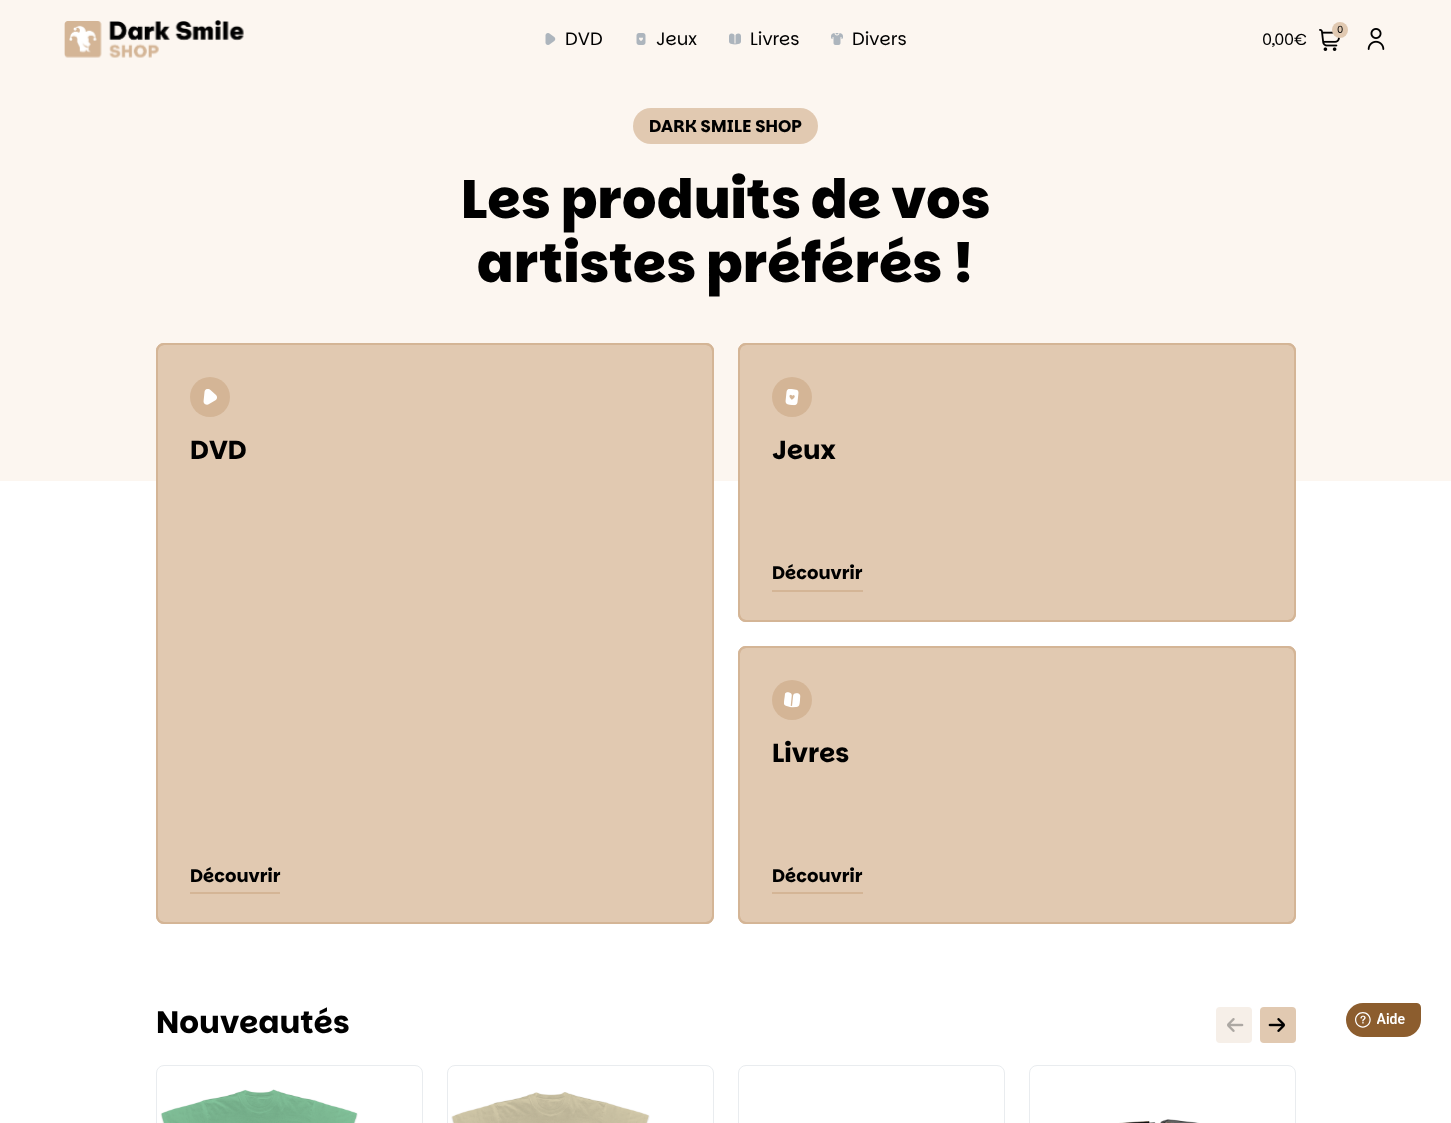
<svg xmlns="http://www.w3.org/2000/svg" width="1451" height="1123">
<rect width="100%" height="100%" fill="#fff"/>
<rect width="1451" height="481" fill="#fcf6f0"/>
<image x="64" y="20" width="180" height="38" href="media/1.png"/>
<image x="545" y="33" width="11" height="12" href="media/2.png"/>
<text x="565" y="45" style="font-family:Parkinsans;font-size:18px;fill:#000">DVD</text>
<image x="636" y="33" width="10" height="12" href="media/3.png"/>
<text x="656" y="45" style="font-family:Parkinsans;font-size:18px;fill:#000">Jeux</text>
<image x="729" y="33" width="12" height="12" href="media/4.png"/>
<text x="750" y="45" style="font-family:Parkinsans;font-size:18px;fill:#000">Livres</text>
<image x="831" y="33" width="12" height="12" href="media/5.png"/>
<text x="852" y="45" style="font-family:Parkinsans;font-size:18px;fill:#000">Divers</text>
<image x="1319" y="29" width="21" height="22" href="media/6.png"/>
<circle cx="1340" cy="30" r="8" fill="#e1c9b1"/>
<text x="1337" y="33" style="font-family:Parkinsans;font-size:10px;fill:#000">0</text>
<text x="1262" y="45" style="font-family:Parkinsans;font-size:16px;fill:#000">0,00€</text>
<image x="1367" y="28" width="18" height="22" href="media/7.png"/>
<rect x="633" y="108" width="185" height="36" rx="18" fill="#e1c9b1"/>
<text x="649" y="132" style="font-family:Parkinsans;font-size:17px;font-weight:bold;fill:#000">DARK SMILE SHOP</text>
<text x="461" y="218" style="font-family:Parkinsans;font-size:54px;font-weight:800;fill:#000">Les produits de vos</text>
<text x="477" y="282" style="font-family:Parkinsans;font-size:54px;font-weight:800;fill:#000">artistes préférés !</text>
<rect x="157" y="344" width="556" height="579" rx="7" fill="#e1c9b1" stroke="#d4b596" stroke-width="2"/>
<rect x="157" y="344" width="556" height="579" rx="7" fill="none" stroke="#d4b596" stroke-width="2"/>
<circle cx="210" cy="397" r="20" fill="#d4b596"/>
<image x="203" y="389" width="14" height="16" href="media/8.png"/>
<text x="190" y="459" style="font-family:Parkinsans;font-size:26px;font-weight:bold;fill:#000">DVD</text>
<rect x="190" y="892" width="90" height="2" fill="#d4b596"/>
<text x="190" y="882" style="font-family:Parkinsans;font-size:18px;font-weight:bold;fill:#000">Découvrir</text>
<rect x="739" y="344" width="556" height="277" rx="7" fill="#e1c9b1" stroke="#d4b596" stroke-width="2"/>
<rect x="739" y="344" width="556" height="277" rx="7" fill="none" stroke="#d4b596" stroke-width="2"/>
<circle cx="792" cy="397" r="20" fill="#d4b596"/>
<image x="785" y="389" width="14" height="17" href="media/9.png"/>
<text x="772" y="459" style="font-family:Parkinsans;font-size:26px;font-weight:bold;fill:#000">Jeux</text>
<rect x="772" y="590" width="91" height="2" fill="#d4b596"/>
<text x="772" y="579" style="font-family:Parkinsans;font-size:18px;font-weight:bold;fill:#000">Découvrir</text>
<rect x="739" y="647" width="556" height="276" rx="7" fill="#e1c9b1" stroke="#d4b596" stroke-width="2"/>
<rect x="739" y="647" width="556" height="276" rx="7" fill="none" stroke="#d4b596" stroke-width="2"/>
<circle cx="792" cy="700" r="20" fill="#d4b596"/>
<image x="784" y="692" width="17" height="16" href="media/10.png"/>
<text x="772" y="762" style="font-family:Parkinsans;font-size:26px;font-weight:bold;fill:#000">Livres</text>
<rect x="772" y="892" width="91" height="2" fill="#d4b596"/>
<text x="772" y="882" style="font-family:Parkinsans;font-size:18px;font-weight:bold;fill:#000">Découvrir</text>
<rect x="1216" y="1007" width="36" height="36" rx="4" fill="#f6efe8"/>
<image x="1227" y="1018" width="17" height="14" href="media/11.png"/>
<rect x="1260" y="1007" width="36" height="36" rx="4" fill="#e1c9b1"/>
<image x="1268" y="1018" width="17" height="14" href="media/12.png"/>
<rect x="156.5" y="1065.5" width="266" height="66" rx="7.5" fill="none" stroke="#e9ecef"/>
<image x="160" y="1089" width="198" height="34" href="media/13.png"/>
<rect x="447.5" y="1065.5" width="266" height="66" rx="7.5" fill="none" stroke="#e9ecef"/>
<image x="451" y="1092" width="199" height="31" href="media/14.png"/>
<rect x="738.5" y="1065.5" width="266" height="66" rx="7.5" fill="none" stroke="#e9ecef"/>
<rect x="1029.5" y="1065.5" width="266" height="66" rx="7.5" fill="none" stroke="#e9ecef"/>
<image x="1119" y="1119" width="80" height="4" href="media/15.png"/>
<text x="156" y="1033" style="font-family:Parkinsans;font-size:31px;font-weight:bold;fill:#000">Nouveautés</text>
<image x="1346" y="1003" width="75" height="34" href="media/16.png"/>
</svg>
